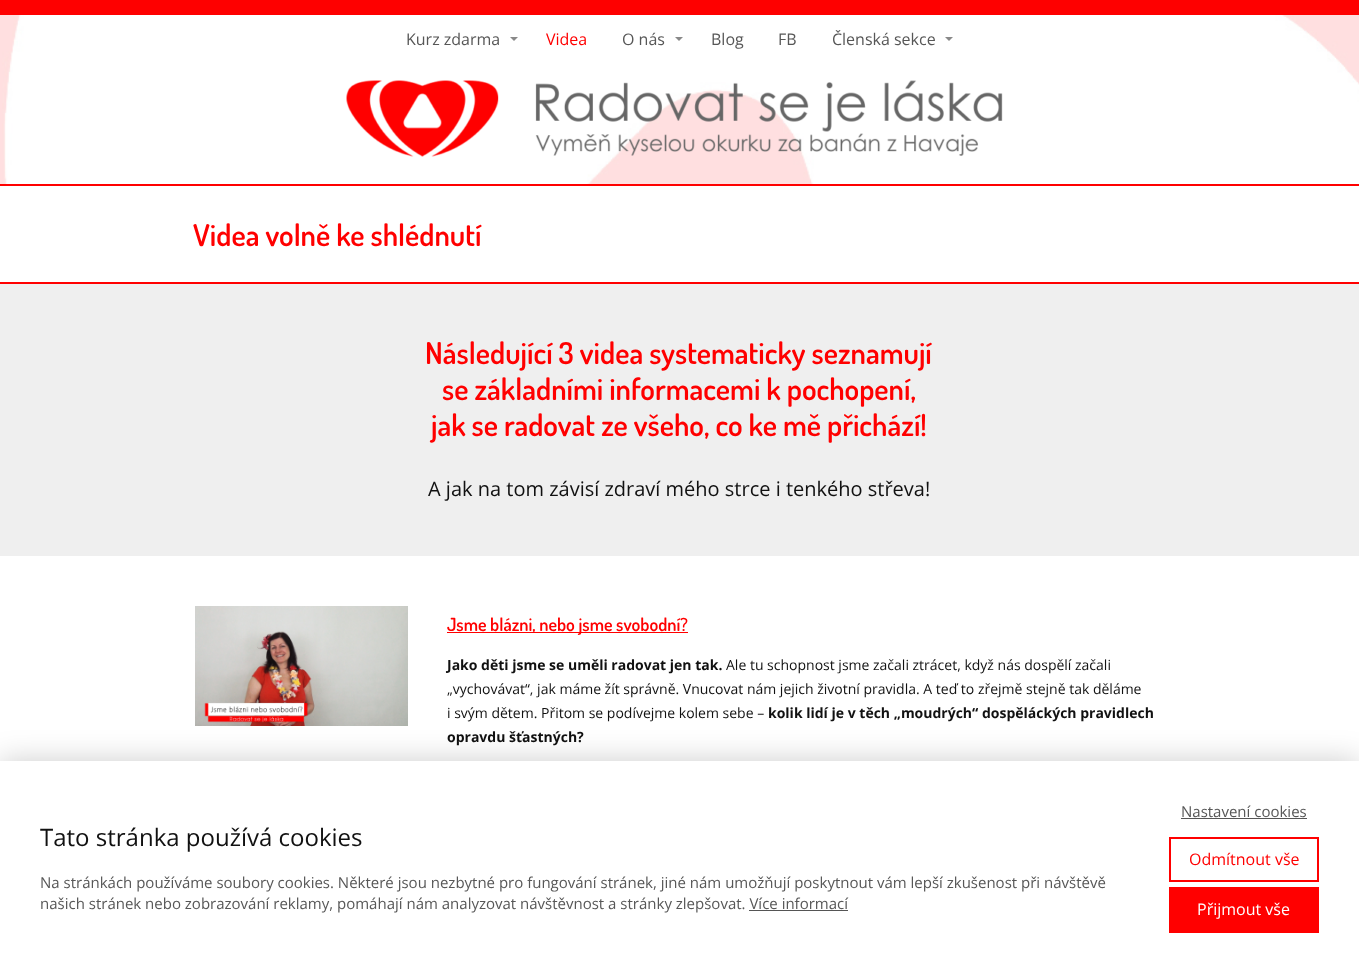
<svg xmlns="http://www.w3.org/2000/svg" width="1359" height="973">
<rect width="100%" height="100%" fill="#fff"/>
<rect width="1359" height="15" fill="#fe0000"/>
<image x="0" y="15" width="1359" height="169" href="media/3.png"/>
<text x="406" y="45" style="font-family:Open Sans;font-size:16px;fill:#575757">Kurz zdarma</text>
<path d="M510 37h8l-4 4z" fill="#898989"/>
<text x="546" y="45" style="font-family:Open Sans;font-size:16px;fill:#f00">Videa</text>
<text x="622" y="45" style="font-family:Open Sans;font-size:16px;fill:#575757">O nás</text>
<path d="M675 37h8l-4 4z" fill="#898989"/>
<text x="711" y="45" style="font-family:Open Sans;font-size:16px;fill:#575757">Blog</text>
<text x="778" y="45" style="font-family:Open Sans;font-size:16px;fill:#575757">FB</text>
<text x="832" y="45" style="font-family:Open Sans;font-size:16px;fill:#575757">Členská sekce</text>
<path d="M945 37h8l-4 4z" fill="#898989"/>
<rect y="184" width="1359" height="2" fill="#f00"/>
<image x="346" y="80" width="657" height="77" href="media/1.png"/>
<rect y="282" width="1359" height="2" fill="#f00"/>
<text x="193" y="246" style="font-family:Dosis;font-size:30px;font-weight:600;fill:#f00">Videa volně ke shlédnutí</text>
<rect y="284" width="1359" height="272" fill="#efefef"/>
<text x="425" y="364" style="font-family:Dosis;font-size:30px;font-weight:600;fill:#f00">Následující 3 videa systematicky seznamují</text>
<text x="442" y="400" style="font-family:Dosis;font-size:30px;font-weight:600;fill:#f00">se základními informacemi k pochopení,</text>
<text x="431" y="436" style="font-family:Dosis;font-size:30px;font-weight:600;fill:#f00">jak se radovat ze všeho, co ke mě přichází!</text>
<text x="428" y="496" style="font-family:Open Sans;font-size:20px;fill:#111">A jak na tom závisí zdraví mého strce i tenkého střeva!</text>
<image x="195" y="606" width="213" height="120" href="media/2.png"/>
<rect x="447" y="632" width="241" height="1" fill="#f00"/>
<text x="447" y="631" style="font-family:Dosis;font-size:18px;font-weight:600;fill:#f00">Jsme blázni, nebo jsme svobodní?</text>
<text x="447" y="670" style="font-family:Open Sans;font-size:14px;font-weight:bold;fill:#111">Jako děti jsme se uměli radovat jen tak.</text>
<text x="726" y="670" style="font-family:Open Sans;font-size:14px;fill:#111">Ale tu schopnost jsme začali ztrácet, když nás dospělí začali</text>
<text x="447" y="694" style="font-family:Open Sans;font-size:14px;fill:#111">„vychovávat“, jak máme žít správně. Vnucovat nám jejich životní pravidla. A teď to zřejmě stejně tak děláme</text>
<text x="447" y="718" style="font-family:Open Sans;font-size:14px;fill:#111">i svým dětem. Přitom se podívejme kolem sebe –</text>
<text x="768" y="718" style="font-family:Open Sans;font-size:14px;font-weight:bold;fill:#111">kolik lidí je v těch „moudrých“ dospěláckých pravidlech</text>
<text x="447" y="742" style="font-family:Open Sans;font-size:14px;font-weight:bold;fill:#111">opravdu šťastných?</text>
<rect y="761" width="1359" height="212" fill="#00000033" filter="blur(15px)"/>
<rect y="761" width="1359" height="212" fill="#fff"/>
<text x="40" y="846" style="font-family:Open Sans;font-size:24px;fill:#111">Tato stránka používá cookies</text>
<text x="40" y="888" style="font-family:Open Sans;font-size:15px;fill:#575757">Na stránkách používáme soubory cookies. Některé jsou nezbytné pro fungování stránek, jiné nám umožňují poskytnout vám lepší zkušenost při návštěvě</text>
<text x="40" y="909" style="font-family:Open Sans;font-size:15px;fill:#575757">našich stránek nebo zobrazování reklamy, pomáhají nám analyzovat návštěvnost a stránky zlepšovat. Více informací</text>
<rect x="749" y="910" width="99" height="1" fill="#555"/>
<text x="1181" y="817" style="font-family:Open Sans;font-size:15px;fill:#575757">Nastavení cookies</text>
<rect x="1181" y="818" width="126" height="1" fill="#555"/>
<rect x="1170" y="838" width="148" height="43" fill="none" stroke="#f00" stroke-width="2"/>
<text x="1189" y="865" style="font-family:Open Sans;font-size:16px;fill:#f00">Odmítnout vše</text>
<rect x="1169" y="887" width="150" height="46" fill="#f00"/>
<text x="1197" y="915" style="font-family:Open Sans;font-size:16px;fill:#fff">Přijmout vše</text>
</svg>
